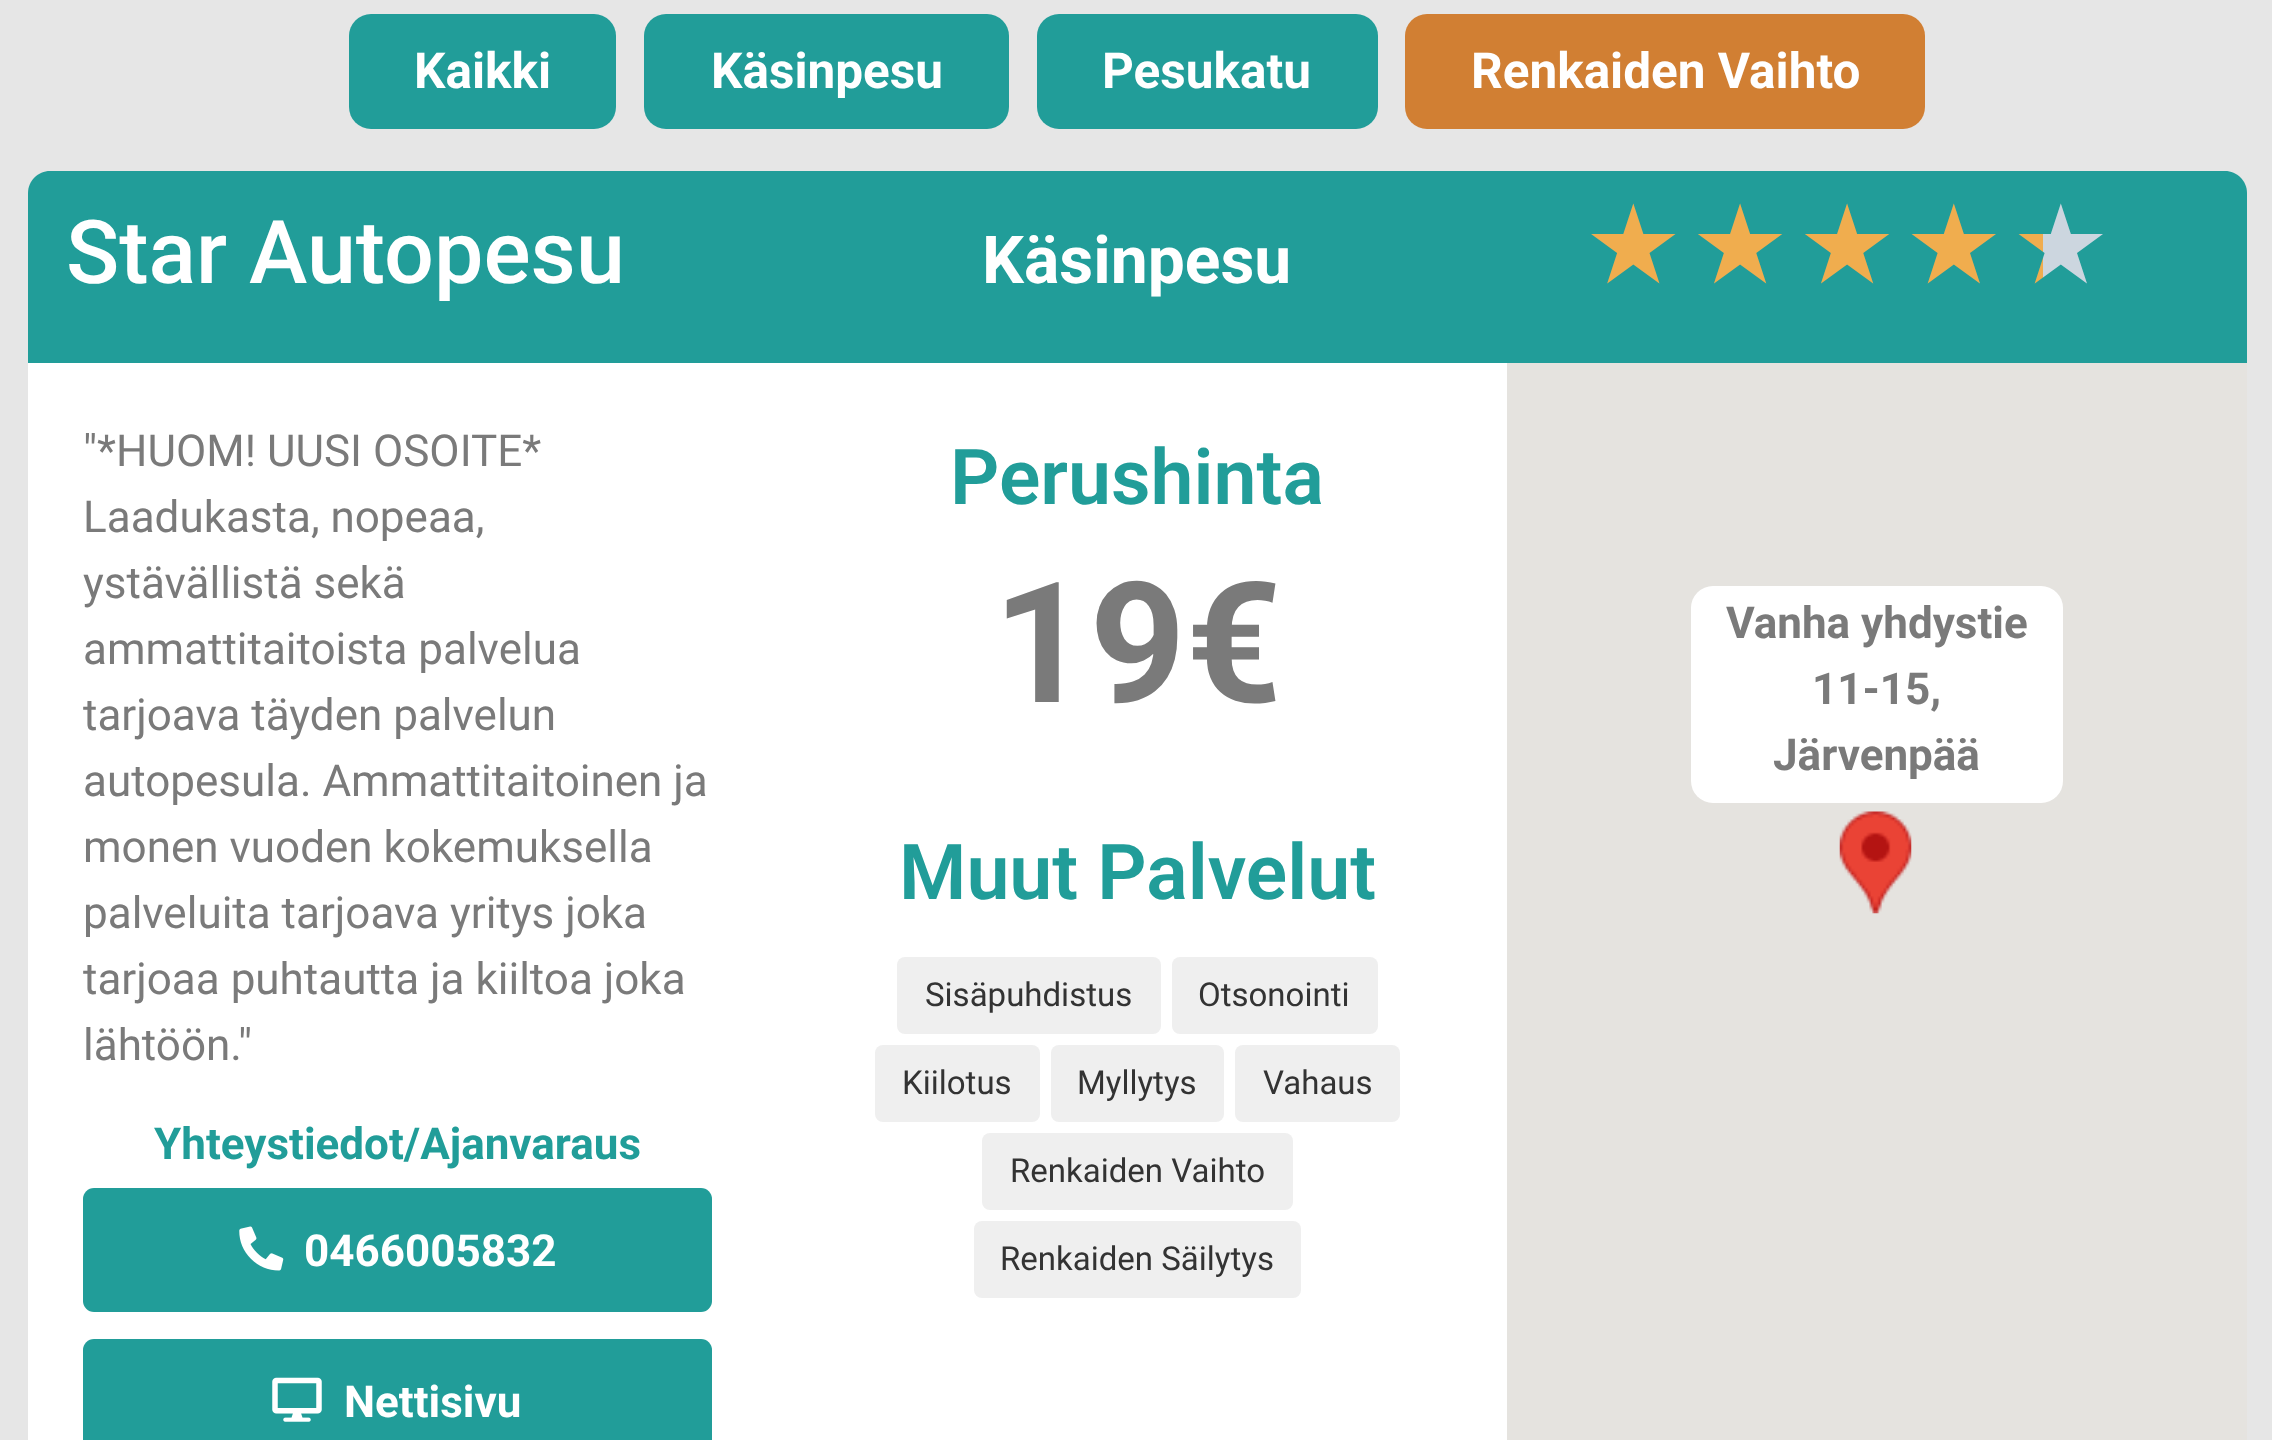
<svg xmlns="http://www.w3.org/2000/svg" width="2272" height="1440">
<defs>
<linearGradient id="g1" gradientUnits="userSpaceOnUse" x1="1584" y1="246" x2="2118" y2="246"><stop offset="0.86" stop-color="#f0ad4e"/><stop offset="0.86" stop-color="#ccd6df"/></linearGradient>
</defs>
<rect width="100%" height="100%" fill="#e6e6e6"/>
<rect x="349" y="14" width="267" height="115" rx="22" fill="#219d99"/>
<text x="414" y="88" style="font-family:Roboto;font-size:49.5px;font-weight:bold;fill:#fff">Kaikki</text>
<rect x="644" y="14" width="365" height="115" rx="22" fill="#219d99"/>
<text x="711" y="88" style="font-family:Roboto;font-size:49.5px;font-weight:bold;fill:#fff">Käsinpesu</text>
<rect x="1037" y="14" width="341" height="115" rx="22" fill="#219d99"/>
<text x="1102" y="88" style="font-family:Roboto;font-size:49.5px;font-weight:bold;fill:#fff">Pesukatu</text>
<rect x="1405" y="14" width="520" height="115" rx="22" fill="#d17f33"/>
<text x="1471" y="88" style="font-family:Roboto;font-size:49.5px;font-weight:bold;fill:#fff">Renkaiden Vaihto</text>
<path d="M50 171h2175c12 0 22 10 22 22v170h-2219v-170c0-12 10-22 22-22z" fill="#219d99"/>
<text x="66" y="283" style="font-family:Roboto;font-size:88px;font-weight:500;fill:#fff">Star Autopesu</text>
<text x="982" y="283" style="font-family:Roboto;font-size:66px;font-weight:bold;fill:#fff">Käsinpesu</text>
<text x="1584" y="283" style="font-family:DejaVu Sans;font-size:110px;letter-spacing:8.25px;fill:url(#g1)">★★★★★</text>
<rect x="28" y="363" width="1479" height="1077" fill="#fff"/>
<text x="83" y="466" style="font-family:Roboto;font-size:44px;fill:#7a7a7a">"*HUOM! UUSI OSOITE*</text>
<text x="83" y="532" style="font-family:Roboto;font-size:44px;fill:#7a7a7a">Laadukasta, nopeaa,</text>
<text x="83" y="598" style="font-family:Roboto;font-size:44px;fill:#7a7a7a">ystävällistä sekä</text>
<text x="83" y="664" style="font-family:Roboto;font-size:44px;fill:#7a7a7a">ammattitaitoista palvelua</text>
<text x="83" y="730" style="font-family:Roboto;font-size:44px;fill:#7a7a7a">tarjoava täyden palvelun</text>
<text x="83" y="796" style="font-family:Roboto;font-size:44px;fill:#7a7a7a">autopesula. Ammattitaitoinen ja</text>
<text x="83" y="862" style="font-family:Roboto;font-size:44px;fill:#7a7a7a">monen vuoden kokemuksella</text>
<text x="83" y="928" style="font-family:Roboto;font-size:44px;fill:#7a7a7a">palveluita tarjoava yritys joka</text>
<text x="83" y="994" style="font-family:Roboto;font-size:44px;fill:#7a7a7a">tarjoaa puhtautta ja kiiltoa joka</text>
<text x="83" y="1060" style="font-family:Roboto;font-size:44px;fill:#7a7a7a">lähtöön.</text>
<text x="238" y="1060" style="font-family:Roboto;font-size:44px;fill:#7a7a7a">"</text>
<text x="154" y="1159" style="font-family:Roboto;font-size:44px;font-weight:bold;fill:#219d99">Yhteystiedot/Ajanvaraus</text>
<rect x="83" y="1188" width="629" height="124" rx="11" fill="#219d99"/>
<image x="239" y="1226" width="45" height="45" href="media/1.png"/>
<text x="304" y="1266" style="font-family:Roboto;font-size:44px;font-weight:bold;fill:#fff">0466005832</text>
<rect x="83" y="1339" width="629" height="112" rx="11" fill="#219d99"/>
<image x="272" y="1377" width="50" height="45" href="media/2.png"/>
<text x="344" y="1417" style="font-family:Roboto;font-size:44px;font-weight:bold;fill:#fff">Nettisivu</text>
<text x="950" y="504" style="font-family:Roboto;font-size:77px;font-weight:600;fill:#219d99">Perushinta</text>
<text x="993" y="702" style="font-family:Roboto;font-size:168px;font-weight:bold;fill:#7a7a7a">19€</text>
<text x="899" y="899" style="font-family:Roboto;font-size:77px;font-weight:600;fill:#219d99">Muut Palvelut</text>
<rect x="897" y="957" width="264" height="77" rx="8" fill="#efefef"/>
<text x="925" y="1006" style="font-family:Roboto;font-size:33px;fill:#333">Sisäpuhdistus</text>
<rect x="1172" y="957" width="206" height="77" rx="8" fill="#efefef"/>
<text x="1198" y="1006" style="font-family:Roboto;font-size:33px;fill:#333">Otsonointi</text>
<rect x="875" y="1045" width="165" height="77" rx="8" fill="#efefef"/>
<text x="902" y="1094" style="font-family:Roboto;font-size:33px;fill:#333">Kiilotus</text>
<rect x="1051" y="1045" width="173" height="77" rx="8" fill="#efefef"/>
<text x="1077" y="1094" style="font-family:Roboto;font-size:33px;fill:#333">Myllytys</text>
<rect x="1235" y="1045" width="165" height="77" rx="8" fill="#efefef"/>
<text x="1263" y="1094" style="font-family:Roboto;font-size:33px;fill:#333">Vahaus</text>
<rect x="982" y="1133" width="311" height="77" rx="8" fill="#efefef"/>
<text x="1010" y="1182" style="font-family:Roboto;font-size:33px;fill:#333">Renkaiden Vaihto</text>
<rect x="974" y="1221" width="327" height="77" rx="8" fill="#efefef"/>
<text x="1000" y="1270" style="font-family:Roboto;font-size:33px;fill:#333">Renkaiden Säilytys</text>
<rect x="1507" y="363" width="740" height="1077" fill="#e5e3df"/>
<image x="1839" y="811" width="73" height="103" href="media/3.png"/>
<rect x="1691" y="586" width="372" height="217" rx="22" fill="#fff"/>
<text x="1726" y="638" style="font-family:Roboto;font-size:44px;font-weight:bold;fill:#7a7a7a">Vanha yhdystie</text>
<text x="1812" y="704" style="font-family:Roboto;font-size:44px;font-weight:bold;fill:#7a7a7a">11-15,</text>
<text x="1773" y="770" style="font-family:Roboto;font-size:44px;font-weight:bold;fill:#7a7a7a">Järvenpää</text>
</svg>
